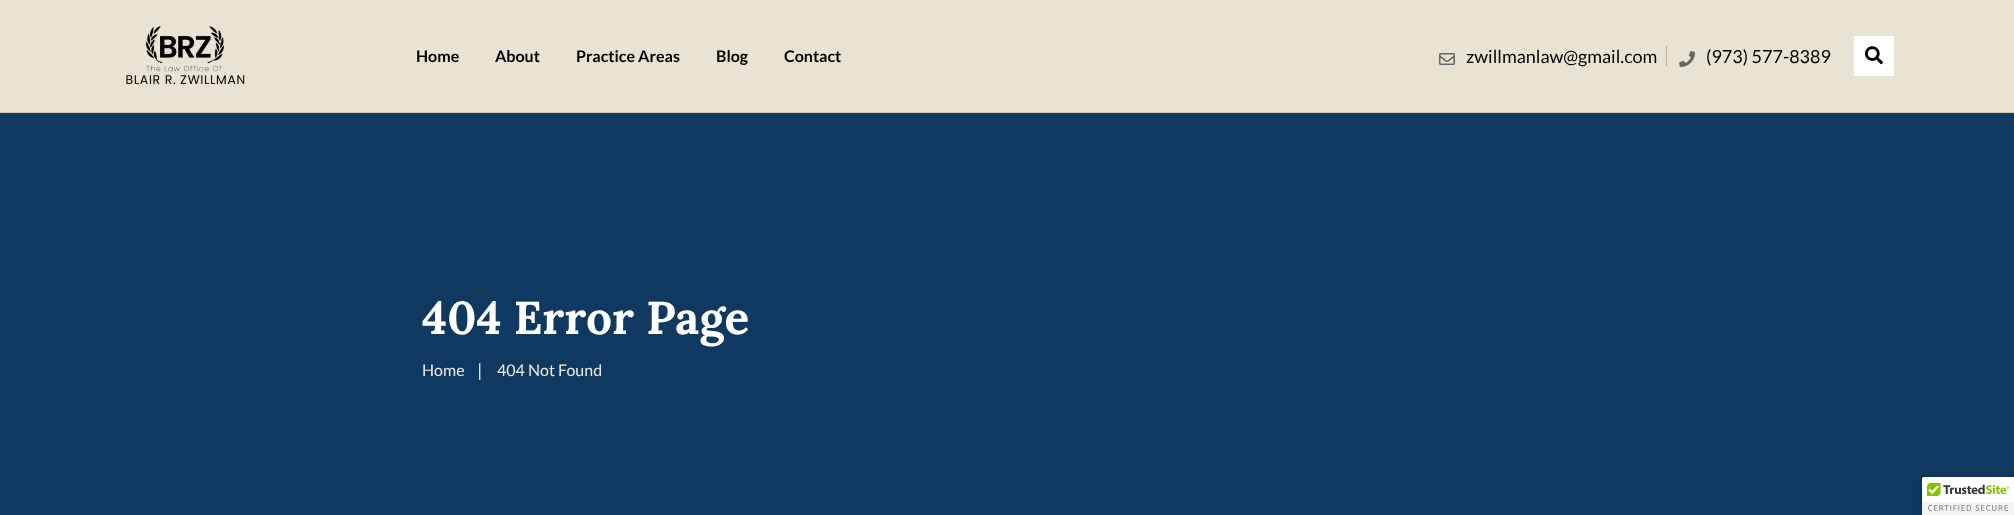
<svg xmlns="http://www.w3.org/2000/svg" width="2014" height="515">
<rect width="100%" height="100%" fill="#0f3960"/>
<rect width="2014" height="112" fill="#e8e3d2"/>
<rect y="112" width="2014" height="1" fill="#d1ccbd"/>
<image x="126" y="26" width="119" height="59" href="media/1.png"/>
<text x="416" y="62" style="font-family:Lato;font-size:16px;font-weight:bold;fill:#000">Home</text>
<text x="495" y="62" style="font-family:Lato;font-size:16px;font-weight:bold;fill:#000">About</text>
<text x="576" y="62" style="font-family:Lato;font-size:16px;font-weight:bold;fill:#000">Practice Areas</text>
<text x="716" y="62" style="font-family:Lato;font-size:16px;font-weight:bold;fill:#000">Blog</text>
<text x="784" y="62" style="font-family:Lato;font-size:16px;font-weight:bold;fill:#000">Contact</text>
<image x="1439" y="53" width="16" height="12" href="media/2.png"/>
<text x="1466" y="63" style="font-family:Lato;font-size:18px;fill:#000">zwillmanlaw@gmail.com</text>
<rect x="1666" y="46" width="1" height="20" fill="#b8b4a7"/>
<image x="1679" y="51" width="16" height="16" href="media/3.png"/>
<text x="1706" y="63" style="font-family:Lato;font-size:18px;fill:#000">(973) 577-8389</text>
<rect x="1854" y="36" width="40" height="40" fill="#fff"/>
<image x="1865" y="46" width="18" height="19" href="media/4.png"/>
<text x="422" y="334" style="font-family:Lora;font-size:46px;font-weight:bold;fill:#fff">404 Error Page</text>
<text x="422" y="376" style="font-family:Lato;font-size:16px;fill:#ececec">Home</text>
<text x="477" y="377" style="font-family:Lato;font-size:18px;fill:#ececec">|</text>
<text x="497" y="376" style="font-family:Lato;font-size:16px;fill:#ececec">404 Not Found</text>
<rect x="1922" y="477" width="92" height="38" rx="2" fill="#00000033" filter="blur(2.5px)"/>
<path d="M1924 477h90v38h-92v-36c0-1 1-2 2-2z" fill="#fff"/>
<image x="1922" y="477" width="92" height="38" href="media/5.png"/>
</svg>
